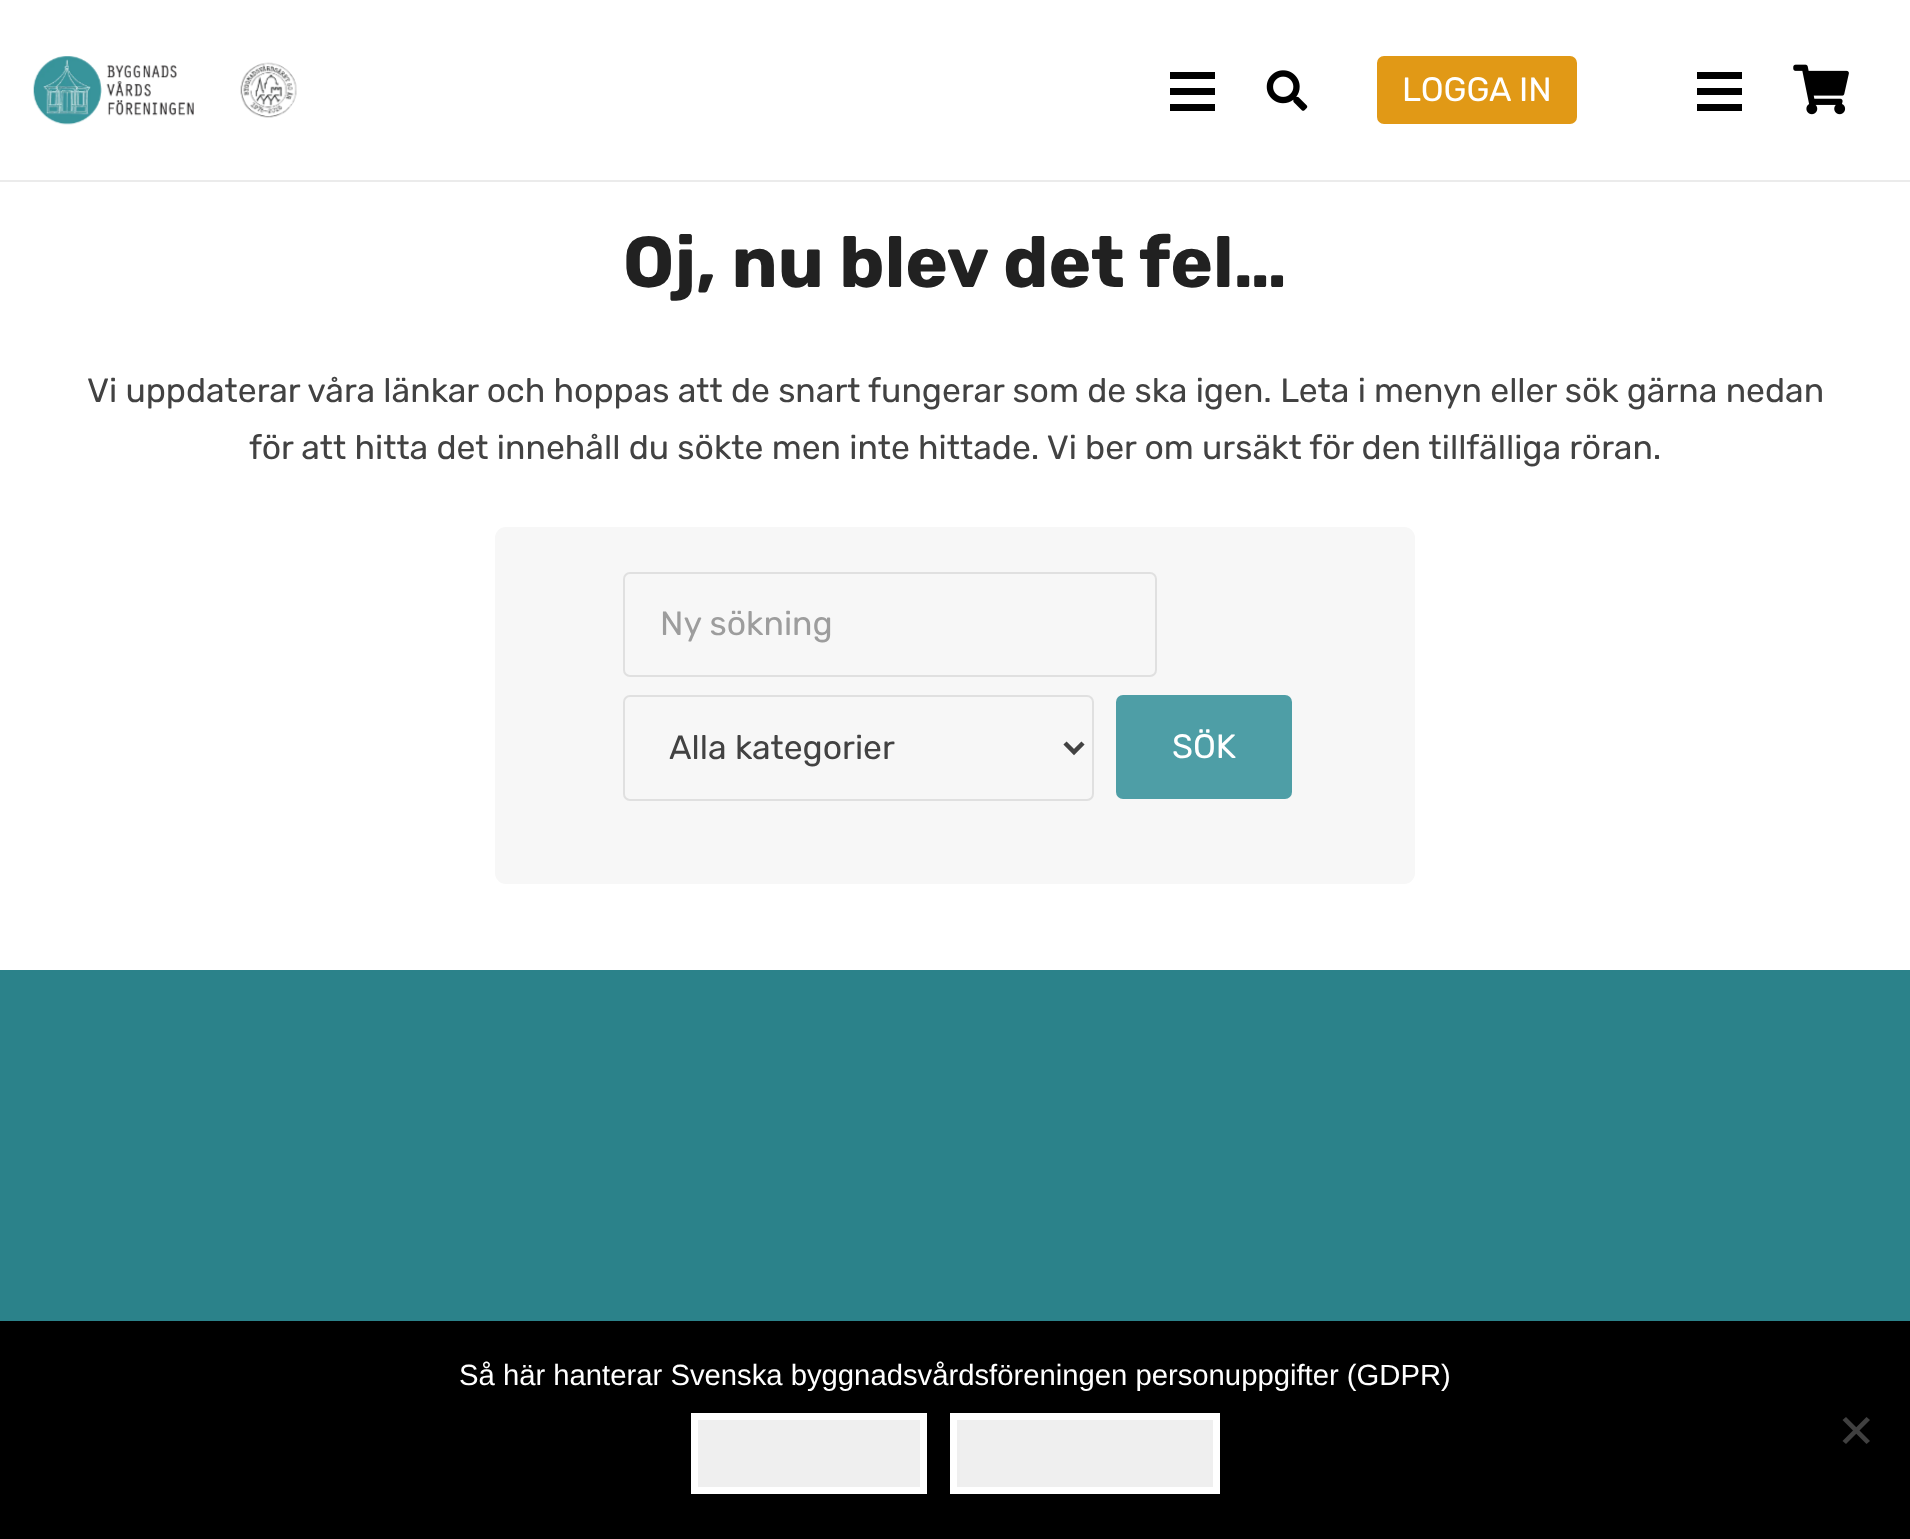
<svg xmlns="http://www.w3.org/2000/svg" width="1910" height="1539">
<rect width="100%" height="100%" fill="#fff"/>
<rect y="180" width="1910" height="2" fill="#ebebeb"/>
<image x="33" y="56" width="161" height="69" href="media/1.png"/>
<image x="240" y="62" width="57" height="56" href="media/2.png"/>
<rect x="1170" y="88" width="45" height="7" fill="#000"/>
<rect x="1170" y="72" width="45" height="7" fill="#000"/>
<rect x="1170" y="104" width="45" height="7" fill="#000"/>
<image x="1266" y="70" width="42" height="41" href="media/3.png"/>
<rect x="1378" y="57" width="198" height="66" rx="6" fill="#e19916" stroke="#e19916" stroke-width="2"/>
<text x="1402" y="101" style="font-family:Rubik;font-size:33.75px;fill:#fff">LOGGA IN</text>
<rect x="1697" y="88" width="45" height="7" fill="#000"/>
<rect x="1697" y="72" width="45" height="7" fill="#000"/>
<rect x="1697" y="104" width="45" height="7" fill="#000"/>
<image x="1793" y="64" width="56" height="51" href="media/4.png"/>
<text x="623" y="287" style="font-family:Rubik;font-size:72px;font-weight:bold;fill:#212121">Oj, nu blev det fel…</text>
<text x="87" y="402" style="font-family:Rubik;font-size:33.75px;fill:#424242">Vi uppdaterar våra länkar och hoppas att de snart fungerar som de ska igen. Leta i menyn eller sök gärna nedan</text>
<text x="249" y="459" style="font-family:Rubik;font-size:33.75px;fill:#424242">för att hitta det innehåll du sökte men inte hittade. Vi ber om ursäkt för den tillfälliga röran.</text>
<rect x="495" y="527" width="920" height="357" rx="11" fill="#f7f7f7"/>
<rect x="624" y="573" width="532" height="103" rx="6" fill="none" stroke="#e0e0e0" stroke-width="2"/>
<text x="660" y="635" style="font-family:Rubik;font-size:33.75px;fill:#9d9d9d">Ny sökning</text>
<rect x="624" y="696" width="469" height="104" rx="6" fill="none" stroke="#e0e0e0" stroke-width="2"/>
<path d="M1065 743l9 9l9-9" fill="none" stroke="#424242" stroke-width="4.5"/>
<text x="669" y="759" style="font-family:Rubik;font-size:33.75px;fill:#424242">Alla kategorier</text>
<rect x="1116" y="695" width="176" height="104" rx="7" fill="#4e9ea6"/>
<text x="1172" y="758" style="font-family:Rubik;font-size:33.75px;fill:#fff">SÖK</text>
<rect y="970" width="1910" height="351" fill="#2b828a"/>
<rect y="1321" width="1910" height="218" fill="#000"/>
<text x="459" y="1385" style="font-family:Liberation Sans;font-size:29.25px;fill:#fff">Så här hanterar Svenska byggnadsvårdsföreningen personuppgifter (GDPR)</text>
<rect x="694.5" y="1416.5" width="229" height="74" fill="#efefef" stroke="#fff" stroke-width="7"/>
<rect x="953.5" y="1416.5" width="263" height="74" fill="#efefef" stroke="#fff" stroke-width="7"/>
<path d="M1866.5 1417l3.5 3l-24 24l-3.5-3z" fill="#404040"/>
<path d="M1842.5 1420l3.5-3l24 24l-3.5 3z" fill="#404040"/>
</svg>
